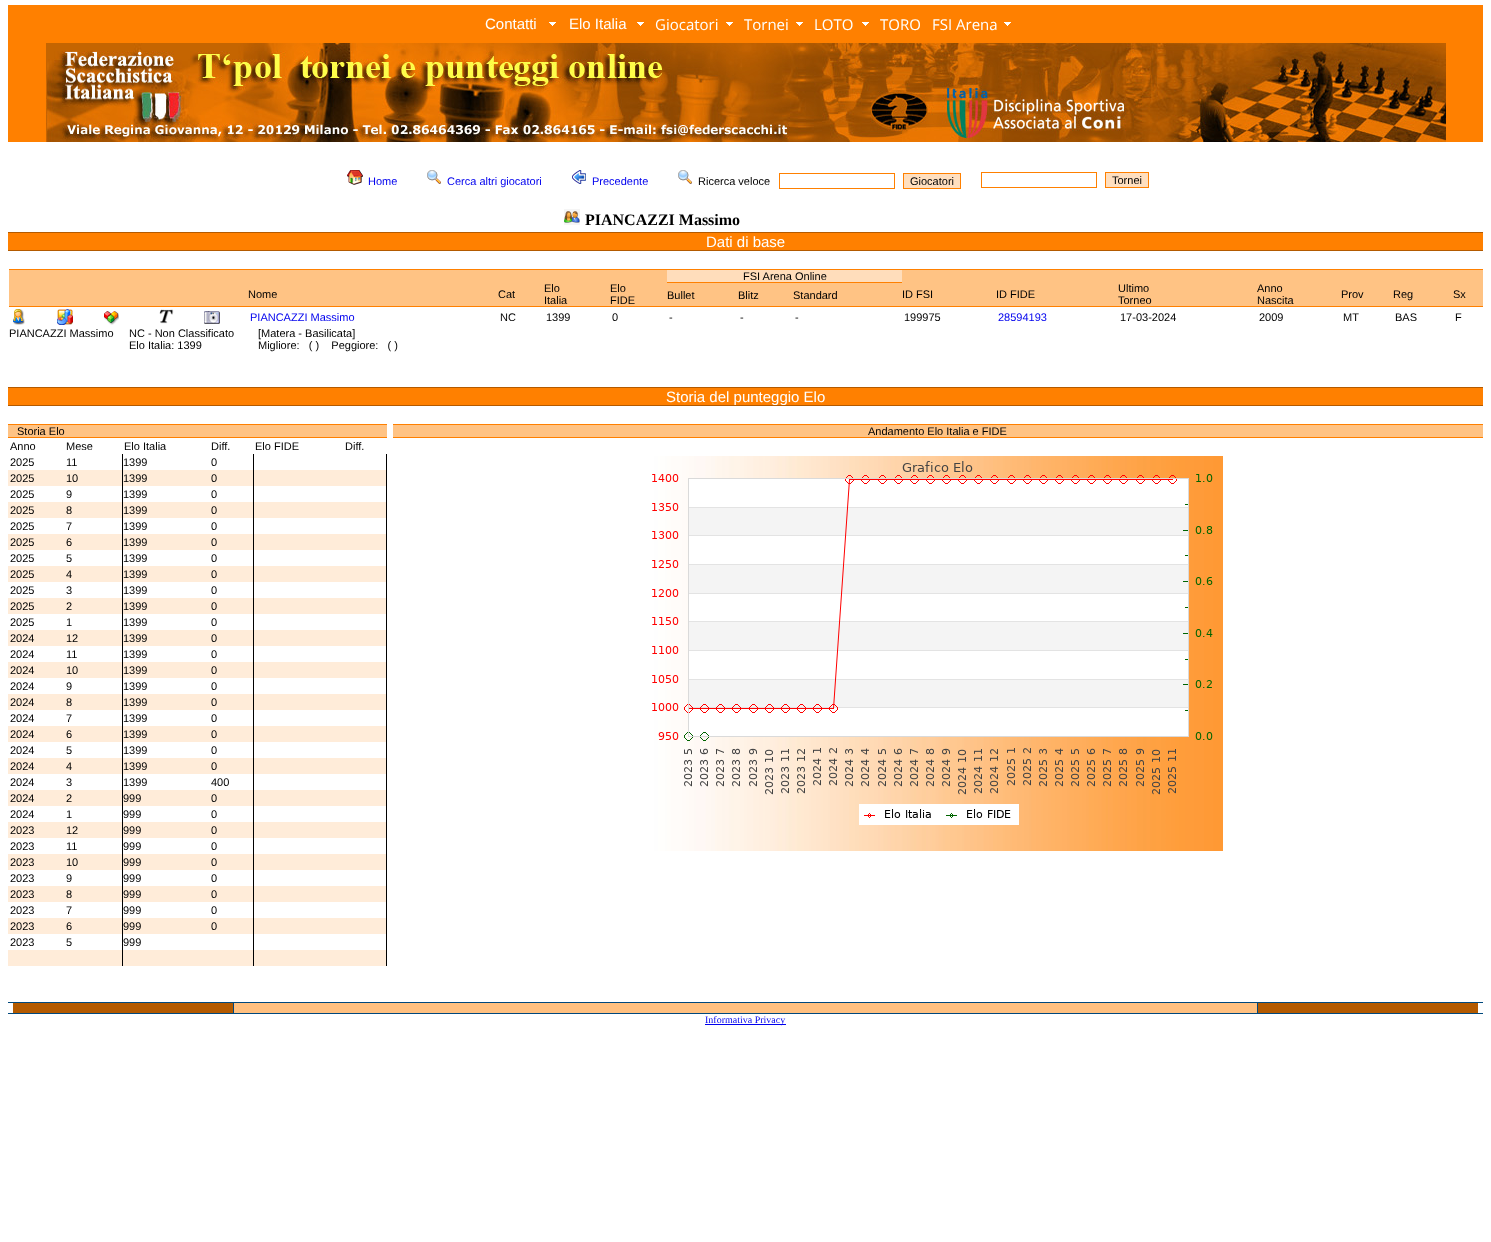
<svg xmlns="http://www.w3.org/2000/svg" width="1491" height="1242">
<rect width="100%" height="100%" fill="#fff"/>
<rect x="8" y="5" width="1475" height="137" fill="#ff8000"/>
<image x="549" y="22" width="7" height="4" href="media/1.png"/>
<text x="485" y="29" style="font-family:Liberation Sans;font-size:15px;fill:#fff">Contatti</text>
<image x="637" y="22" width="7" height="4" href="media/1.png"/>
<text x="569" y="29" style="font-family:Liberation Sans;font-size:15px;fill:#fff">Elo Italia</text>
<image x="726" y="22" width="7" height="4" href="media/1.png"/>
<text x="655" y="30" style="font-family:Open Sans;font-size:15px;fill:#fff">Giocatori</text>
<image x="796" y="22" width="7" height="4" href="media/1.png"/>
<text x="744" y="30" style="font-family:Open Sans;font-size:15px;fill:#fff">Tornei</text>
<image x="862" y="22" width="7" height="4" href="media/1.png"/>
<text x="814" y="30" style="font-family:Open Sans;font-size:15px;fill:#fff">LOTO</text>
<text x="880" y="30" style="font-family:Open Sans;font-size:15px;fill:#fff">TORO</text>
<image x="1004" y="22" width="7" height="4" href="media/1.png"/>
<text x="932" y="30" style="font-family:Open Sans;font-size:15px;fill:#fff">FSI Arena</text>
<image x="46" y="43" width="1400" height="99" href="media/2.png"/>
<image x="347" y="170" width="16" height="15" href="media/3.png"/>
<text x="368" y="185" style="font-family:Liberation Sans;font-size:11px;fill:#00e">Home</text>
<image x="427" y="170" width="14" height="14" href="media/4.png"/>
<text x="447" y="185" style="font-family:Liberation Sans;font-size:11px;fill:#00e">Cerca altri giocatori</text>
<image x="572" y="170" width="14" height="14" href="media/5.png"/>
<text x="592" y="185" style="font-family:Liberation Sans;font-size:11px;fill:#00e">Precedente</text>
<image x="678" y="170" width="14" height="14" href="media/4.png"/>
<text x="698" y="185" style="font-family:Liberation Sans;font-size:11px;fill:#000">Ricerca veloce</text>
<rect x="779.5" y="173.5" width="115" height="15" fill="none" stroke="#ff8000"/>
<rect x="903.5" y="173.5" width="57" height="15" fill="#ffdfbf" stroke="#ff8000"/>
<text x="910" y="185" style="font-family:Liberation Sans;font-size:11px;fill:#000">Giocatori</text>
<rect x="981.5" y="172.5" width="115" height="15" fill="none" stroke="#ff8000"/>
<rect x="1105.5" y="172.5" width="43" height="15" fill="#ffdfbf" stroke="#ff8000"/>
<text x="1112" y="184" style="font-family:Liberation Sans;font-size:11px;fill:#000">Tornei</text>
<image x="564" y="209" width="16" height="16" href="media/6.png"/>
<text x="585" y="225" style="font-family:Liberation Serif;font-size:16px;font-weight:bold;fill:#000">PIANCAZZI Massimo</text>
<rect x="8" y="233" width="1475" height="17" fill="#ff8000"/>
<rect x="8" y="232" width="1475" height="1" fill="#b35a00"/>
<rect x="8" y="250" width="1475" height="1" fill="#b35a00"/>
<text x="706" y="247" style="font-family:Liberation Sans;font-size:15px;fill:#fff">Dati di base</text>
<rect x="9" y="270" width="658" height="12" fill="#ffc384"/>
<rect x="9" y="269" width="1474" height="1" fill="#ff8000"/>
<rect x="667" y="270" width="235" height="12" fill="#fdb"/>
<text x="743" y="280" style="font-family:Liberation Sans;font-size:11px;fill:#000">FSI Arena Online</text>
<rect x="902" y="270" width="581" height="12" fill="#ffc384"/>
<rect x="9" y="282" width="658" height="24" fill="#ffc384"/>
<rect x="9" y="306" width="1474" height="1" fill="#ff8000"/>
<text x="248" y="298" style="font-family:Liberation Sans;font-size:11px;fill:#000">Nome</text>
<text x="498" y="298" style="font-family:Liberation Sans;font-size:11px;fill:#000">Cat</text>
<text x="544" y="292" style="font-family:Liberation Sans;font-size:11px;fill:#000">Elo</text>
<text x="544" y="304" style="font-family:Liberation Sans;font-size:11px;fill:#000">Italia</text>
<text x="610" y="292" style="font-family:Liberation Sans;font-size:11px;fill:#000">Elo</text>
<text x="610" y="304" style="font-family:Liberation Sans;font-size:11px;fill:#000">FIDE</text>
<rect x="667" y="283" width="235" height="23" fill="#ffc384"/>
<rect x="667" y="282" width="235" height="1" fill="#ff8000"/>
<text x="667" y="299" style="font-family:Liberation Sans;font-size:11px;fill:#000">Bullet</text>
<text x="738" y="299" style="font-family:Liberation Sans;font-size:11px;fill:#000">Blitz</text>
<text x="793" y="299" style="font-family:Liberation Sans;font-size:11px;fill:#000">Standard</text>
<rect x="902" y="282" width="581" height="24" fill="#ffc384"/>
<text x="902" y="298" style="font-family:Liberation Sans;font-size:11px;fill:#000">ID FSI</text>
<text x="996" y="298" style="font-family:Liberation Sans;font-size:11px;fill:#000">ID FIDE</text>
<text x="1118" y="292" style="font-family:Liberation Sans;font-size:11px;fill:#000">Ultimo</text>
<text x="1118" y="304" style="font-family:Liberation Sans;font-size:11px;fill:#000">Torneo</text>
<text x="1257" y="292" style="font-family:Liberation Sans;font-size:11px;fill:#000">Anno</text>
<text x="1257" y="304" style="font-family:Liberation Sans;font-size:11px;fill:#000">Nascita</text>
<text x="1341" y="298" style="font-family:Liberation Sans;font-size:11px;fill:#000">Prov</text>
<text x="1393" y="298" style="font-family:Liberation Sans;font-size:11px;fill:#000">Reg</text>
<text x="1453" y="298" style="font-family:Liberation Sans;font-size:11px;fill:#000">Sx</text>
<image x="13" y="309" width="12" height="16" href="media/7.png"/>
<image x="57" y="309" width="16" height="16" href="media/8.png"/>
<image x="104" y="311" width="15" height="14" href="media/9.png"/>
<image x="159" y="309" width="15" height="15" href="media/10.png"/>
<image x="204" y="311" width="16" height="13" href="media/11.png"/>
<text x="250" y="321" style="font-family:Liberation Sans;font-size:11px;fill:#00e">PIANCAZZI Massimo</text>
<text x="500" y="321" style="font-family:Liberation Sans;font-size:11px;fill:#000">NC</text>
<text x="546" y="321" style="font-family:Liberation Sans;font-size:11px;fill:#000">1399</text>
<text x="612" y="321" style="font-family:Liberation Sans;font-size:11px;fill:#000">0</text>
<text x="669" y="321" style="font-family:Liberation Sans;font-size:11px;fill:#000">-</text>
<text x="740" y="321" style="font-family:Liberation Sans;font-size:11px;fill:#000">-</text>
<text x="795" y="321" style="font-family:Liberation Sans;font-size:11px;fill:#000">-</text>
<text x="904" y="321" style="font-family:Liberation Sans;font-size:11px;fill:#000">199975</text>
<text x="998" y="321" style="font-family:Liberation Sans;font-size:11px;fill:#00e">28594193</text>
<text x="1120" y="321" style="font-family:Liberation Sans;font-size:11px;fill:#000">17-03-2024</text>
<text x="1259" y="321" style="font-family:Liberation Sans;font-size:11px;fill:#000">2009</text>
<text x="1343" y="321" style="font-family:Liberation Sans;font-size:11px;fill:#000">MT</text>
<text x="1395" y="321" style="font-family:Liberation Sans;font-size:11px;fill:#000">BAS</text>
<text x="1455" y="321" style="font-family:Liberation Sans;font-size:11px;fill:#000">F</text>
<text x="9" y="337" style="font-family:Liberation Sans;font-size:11px;fill:#000">PIANCAZZI Massimo</text>
<text x="129" y="337" style="font-family:Liberation Sans;font-size:11px;fill:#000">NC - Non Classificato</text>
<text x="258" y="337" style="font-family:Liberation Sans;font-size:11px;fill:#000">[Matera - Basilicata]</text>
<text x="129" y="349" style="font-family:Liberation Sans;font-size:11px;fill:#000">Elo Italia: 1399</text>
<text x="258" y="349" style="font-family:Liberation Sans;font-size:11px;fill:#000" xml:space="preserve">Migliore:   ( )    Peggiore:   ( )</text>
<rect x="8" y="388" width="1475" height="17" fill="#ff8000"/>
<rect x="8" y="387" width="1475" height="1" fill="#b35a00"/>
<rect x="8" y="405" width="1475" height="1" fill="#b35a00"/>
<text x="666" y="402" style="font-family:Liberation Sans;font-size:15px;fill:#fff">Storia del punteggio Elo</text>
<rect x="8" y="425" width="379" height="12" fill="#ffc384"/>
<rect x="8" y="424" width="379" height="1" fill="#ff8000"/>
<rect x="8" y="437" width="379" height="1" fill="#ff8000"/>
<text x="17" y="435" style="font-family:Liberation Sans;font-size:11px;fill:#000">Storia Elo</text>
<text x="10" y="450" style="font-family:Liberation Sans;font-size:11px;fill:#000">Anno</text>
<text x="66" y="450" style="font-family:Liberation Sans;font-size:11px;fill:#000">Mese</text>
<text x="124" y="450" style="font-family:Liberation Sans;font-size:11px;fill:#000">Elo Italia</text>
<text x="211" y="450" style="font-family:Liberation Sans;font-size:11px;fill:#000">Diff.</text>
<text x="255" y="450" style="font-family:Liberation Sans;font-size:11px;fill:#000">Elo FIDE</text>
<text x="345" y="450" style="font-family:Liberation Sans;font-size:11px;fill:#000">Diff.</text>
<text x="10" y="466" style="font-family:Liberation Sans;font-size:11px;fill:#000">2025</text>
<text x="66" y="466" style="font-family:Liberation Sans;font-size:11px;fill:#000">11</text>
<rect x="122" y="454" width="1" height="512" fill="#000"/>
<text x="123" y="466" style="font-family:Liberation Sans;font-size:11px;fill:#000">1399</text>
<text x="211" y="466" style="font-family:Liberation Sans;font-size:11px;fill:#000">0</text>
<rect x="253" y="454" width="1" height="512" fill="#000"/>
<rect x="386" y="454" width="1" height="512" fill="#000"/>
<rect x="8" y="470" width="114" height="16" fill="#ffecd9"/>
<text x="10" y="482" style="font-family:Liberation Sans;font-size:11px;fill:#000">2025</text>
<text x="66" y="482" style="font-family:Liberation Sans;font-size:11px;fill:#000">10</text>
<rect x="123" y="470" width="130" height="16" fill="#ffecd9"/>
<text x="123" y="482" style="font-family:Liberation Sans;font-size:11px;fill:#000">1399</text>
<text x="211" y="482" style="font-family:Liberation Sans;font-size:11px;fill:#000">0</text>
<rect x="254" y="470" width="132" height="16" fill="#ffecd9"/>
<text x="10" y="498" style="font-family:Liberation Sans;font-size:11px;fill:#000">2025</text>
<text x="66" y="498" style="font-family:Liberation Sans;font-size:11px;fill:#000">9</text>
<text x="123" y="498" style="font-family:Liberation Sans;font-size:11px;fill:#000">1399</text>
<text x="211" y="498" style="font-family:Liberation Sans;font-size:11px;fill:#000">0</text>
<rect x="8" y="502" width="114" height="16" fill="#ffecd9"/>
<text x="10" y="514" style="font-family:Liberation Sans;font-size:11px;fill:#000">2025</text>
<text x="66" y="514" style="font-family:Liberation Sans;font-size:11px;fill:#000">8</text>
<rect x="123" y="502" width="130" height="16" fill="#ffecd9"/>
<text x="123" y="514" style="font-family:Liberation Sans;font-size:11px;fill:#000">1399</text>
<text x="211" y="514" style="font-family:Liberation Sans;font-size:11px;fill:#000">0</text>
<rect x="254" y="502" width="132" height="16" fill="#ffecd9"/>
<text x="10" y="530" style="font-family:Liberation Sans;font-size:11px;fill:#000">2025</text>
<text x="66" y="530" style="font-family:Liberation Sans;font-size:11px;fill:#000">7</text>
<text x="123" y="530" style="font-family:Liberation Sans;font-size:11px;fill:#000">1399</text>
<text x="211" y="530" style="font-family:Liberation Sans;font-size:11px;fill:#000">0</text>
<rect x="8" y="534" width="114" height="16" fill="#ffecd9"/>
<text x="10" y="546" style="font-family:Liberation Sans;font-size:11px;fill:#000">2025</text>
<text x="66" y="546" style="font-family:Liberation Sans;font-size:11px;fill:#000">6</text>
<rect x="123" y="534" width="130" height="16" fill="#ffecd9"/>
<text x="123" y="546" style="font-family:Liberation Sans;font-size:11px;fill:#000">1399</text>
<text x="211" y="546" style="font-family:Liberation Sans;font-size:11px;fill:#000">0</text>
<rect x="254" y="534" width="132" height="16" fill="#ffecd9"/>
<text x="10" y="562" style="font-family:Liberation Sans;font-size:11px;fill:#000">2025</text>
<text x="66" y="562" style="font-family:Liberation Sans;font-size:11px;fill:#000">5</text>
<text x="123" y="562" style="font-family:Liberation Sans;font-size:11px;fill:#000">1399</text>
<text x="211" y="562" style="font-family:Liberation Sans;font-size:11px;fill:#000">0</text>
<rect x="8" y="566" width="114" height="16" fill="#ffecd9"/>
<text x="10" y="578" style="font-family:Liberation Sans;font-size:11px;fill:#000">2025</text>
<text x="66" y="578" style="font-family:Liberation Sans;font-size:11px;fill:#000">4</text>
<rect x="123" y="566" width="130" height="16" fill="#ffecd9"/>
<text x="123" y="578" style="font-family:Liberation Sans;font-size:11px;fill:#000">1399</text>
<text x="211" y="578" style="font-family:Liberation Sans;font-size:11px;fill:#000">0</text>
<rect x="254" y="566" width="132" height="16" fill="#ffecd9"/>
<text x="10" y="594" style="font-family:Liberation Sans;font-size:11px;fill:#000">2025</text>
<text x="66" y="594" style="font-family:Liberation Sans;font-size:11px;fill:#000">3</text>
<text x="123" y="594" style="font-family:Liberation Sans;font-size:11px;fill:#000">1399</text>
<text x="211" y="594" style="font-family:Liberation Sans;font-size:11px;fill:#000">0</text>
<rect x="8" y="598" width="114" height="16" fill="#ffecd9"/>
<text x="10" y="610" style="font-family:Liberation Sans;font-size:11px;fill:#000">2025</text>
<text x="66" y="610" style="font-family:Liberation Sans;font-size:11px;fill:#000">2</text>
<rect x="123" y="598" width="130" height="16" fill="#ffecd9"/>
<text x="123" y="610" style="font-family:Liberation Sans;font-size:11px;fill:#000">1399</text>
<text x="211" y="610" style="font-family:Liberation Sans;font-size:11px;fill:#000">0</text>
<rect x="254" y="598" width="132" height="16" fill="#ffecd9"/>
<text x="10" y="626" style="font-family:Liberation Sans;font-size:11px;fill:#000">2025</text>
<text x="66" y="626" style="font-family:Liberation Sans;font-size:11px;fill:#000">1</text>
<text x="123" y="626" style="font-family:Liberation Sans;font-size:11px;fill:#000">1399</text>
<text x="211" y="626" style="font-family:Liberation Sans;font-size:11px;fill:#000">0</text>
<rect x="8" y="630" width="114" height="16" fill="#ffecd9"/>
<text x="10" y="642" style="font-family:Liberation Sans;font-size:11px;fill:#000">2024</text>
<text x="66" y="642" style="font-family:Liberation Sans;font-size:11px;fill:#000">12</text>
<rect x="123" y="630" width="130" height="16" fill="#ffecd9"/>
<text x="123" y="642" style="font-family:Liberation Sans;font-size:11px;fill:#000">1399</text>
<text x="211" y="642" style="font-family:Liberation Sans;font-size:11px;fill:#000">0</text>
<rect x="254" y="630" width="132" height="16" fill="#ffecd9"/>
<text x="10" y="658" style="font-family:Liberation Sans;font-size:11px;fill:#000">2024</text>
<text x="66" y="658" style="font-family:Liberation Sans;font-size:11px;fill:#000">11</text>
<text x="123" y="658" style="font-family:Liberation Sans;font-size:11px;fill:#000">1399</text>
<text x="211" y="658" style="font-family:Liberation Sans;font-size:11px;fill:#000">0</text>
<rect x="8" y="662" width="114" height="16" fill="#ffecd9"/>
<text x="10" y="674" style="font-family:Liberation Sans;font-size:11px;fill:#000">2024</text>
<text x="66" y="674" style="font-family:Liberation Sans;font-size:11px;fill:#000">10</text>
<rect x="123" y="662" width="130" height="16" fill="#ffecd9"/>
<text x="123" y="674" style="font-family:Liberation Sans;font-size:11px;fill:#000">1399</text>
<text x="211" y="674" style="font-family:Liberation Sans;font-size:11px;fill:#000">0</text>
<rect x="254" y="662" width="132" height="16" fill="#ffecd9"/>
<text x="10" y="690" style="font-family:Liberation Sans;font-size:11px;fill:#000">2024</text>
<text x="66" y="690" style="font-family:Liberation Sans;font-size:11px;fill:#000">9</text>
<text x="123" y="690" style="font-family:Liberation Sans;font-size:11px;fill:#000">1399</text>
<text x="211" y="690" style="font-family:Liberation Sans;font-size:11px;fill:#000">0</text>
<rect x="8" y="694" width="114" height="16" fill="#ffecd9"/>
<text x="10" y="706" style="font-family:Liberation Sans;font-size:11px;fill:#000">2024</text>
<text x="66" y="706" style="font-family:Liberation Sans;font-size:11px;fill:#000">8</text>
<rect x="123" y="694" width="130" height="16" fill="#ffecd9"/>
<text x="123" y="706" style="font-family:Liberation Sans;font-size:11px;fill:#000">1399</text>
<text x="211" y="706" style="font-family:Liberation Sans;font-size:11px;fill:#000">0</text>
<rect x="254" y="694" width="132" height="16" fill="#ffecd9"/>
<text x="10" y="722" style="font-family:Liberation Sans;font-size:11px;fill:#000">2024</text>
<text x="66" y="722" style="font-family:Liberation Sans;font-size:11px;fill:#000">7</text>
<text x="123" y="722" style="font-family:Liberation Sans;font-size:11px;fill:#000">1399</text>
<text x="211" y="722" style="font-family:Liberation Sans;font-size:11px;fill:#000">0</text>
<rect x="8" y="726" width="114" height="16" fill="#ffecd9"/>
<text x="10" y="738" style="font-family:Liberation Sans;font-size:11px;fill:#000">2024</text>
<text x="66" y="738" style="font-family:Liberation Sans;font-size:11px;fill:#000">6</text>
<rect x="123" y="726" width="130" height="16" fill="#ffecd9"/>
<text x="123" y="738" style="font-family:Liberation Sans;font-size:11px;fill:#000">1399</text>
<text x="211" y="738" style="font-family:Liberation Sans;font-size:11px;fill:#000">0</text>
<rect x="254" y="726" width="132" height="16" fill="#ffecd9"/>
<text x="10" y="754" style="font-family:Liberation Sans;font-size:11px;fill:#000">2024</text>
<text x="66" y="754" style="font-family:Liberation Sans;font-size:11px;fill:#000">5</text>
<text x="123" y="754" style="font-family:Liberation Sans;font-size:11px;fill:#000">1399</text>
<text x="211" y="754" style="font-family:Liberation Sans;font-size:11px;fill:#000">0</text>
<rect x="8" y="758" width="114" height="16" fill="#ffecd9"/>
<text x="10" y="770" style="font-family:Liberation Sans;font-size:11px;fill:#000">2024</text>
<text x="66" y="770" style="font-family:Liberation Sans;font-size:11px;fill:#000">4</text>
<rect x="123" y="758" width="130" height="16" fill="#ffecd9"/>
<text x="123" y="770" style="font-family:Liberation Sans;font-size:11px;fill:#000">1399</text>
<text x="211" y="770" style="font-family:Liberation Sans;font-size:11px;fill:#000">0</text>
<rect x="254" y="758" width="132" height="16" fill="#ffecd9"/>
<text x="10" y="786" style="font-family:Liberation Sans;font-size:11px;fill:#000">2024</text>
<text x="66" y="786" style="font-family:Liberation Sans;font-size:11px;fill:#000">3</text>
<text x="123" y="786" style="font-family:Liberation Sans;font-size:11px;fill:#000">1399</text>
<text x="211" y="786" style="font-family:Liberation Sans;font-size:11px;fill:#000">400</text>
<rect x="8" y="790" width="114" height="16" fill="#ffecd9"/>
<text x="10" y="802" style="font-family:Liberation Sans;font-size:11px;fill:#000">2024</text>
<text x="66" y="802" style="font-family:Liberation Sans;font-size:11px;fill:#000">2</text>
<rect x="123" y="790" width="130" height="16" fill="#ffecd9"/>
<text x="123" y="802" style="font-family:Liberation Sans;font-size:11px;fill:#000">999</text>
<text x="211" y="802" style="font-family:Liberation Sans;font-size:11px;fill:#000">0</text>
<rect x="254" y="790" width="132" height="16" fill="#ffecd9"/>
<text x="10" y="818" style="font-family:Liberation Sans;font-size:11px;fill:#000">2024</text>
<text x="66" y="818" style="font-family:Liberation Sans;font-size:11px;fill:#000">1</text>
<text x="123" y="818" style="font-family:Liberation Sans;font-size:11px;fill:#000">999</text>
<text x="211" y="818" style="font-family:Liberation Sans;font-size:11px;fill:#000">0</text>
<rect x="8" y="822" width="114" height="16" fill="#ffecd9"/>
<text x="10" y="834" style="font-family:Liberation Sans;font-size:11px;fill:#000">2023</text>
<text x="66" y="834" style="font-family:Liberation Sans;font-size:11px;fill:#000">12</text>
<rect x="123" y="822" width="130" height="16" fill="#ffecd9"/>
<text x="123" y="834" style="font-family:Liberation Sans;font-size:11px;fill:#000">999</text>
<text x="211" y="834" style="font-family:Liberation Sans;font-size:11px;fill:#000">0</text>
<rect x="254" y="822" width="132" height="16" fill="#ffecd9"/>
<text x="10" y="850" style="font-family:Liberation Sans;font-size:11px;fill:#000">2023</text>
<text x="66" y="850" style="font-family:Liberation Sans;font-size:11px;fill:#000">11</text>
<text x="123" y="850" style="font-family:Liberation Sans;font-size:11px;fill:#000">999</text>
<text x="211" y="850" style="font-family:Liberation Sans;font-size:11px;fill:#000">0</text>
<rect x="8" y="854" width="114" height="16" fill="#ffecd9"/>
<text x="10" y="866" style="font-family:Liberation Sans;font-size:11px;fill:#000">2023</text>
<text x="66" y="866" style="font-family:Liberation Sans;font-size:11px;fill:#000">10</text>
<rect x="123" y="854" width="130" height="16" fill="#ffecd9"/>
<text x="123" y="866" style="font-family:Liberation Sans;font-size:11px;fill:#000">999</text>
<text x="211" y="866" style="font-family:Liberation Sans;font-size:11px;fill:#000">0</text>
<rect x="254" y="854" width="132" height="16" fill="#ffecd9"/>
<text x="10" y="882" style="font-family:Liberation Sans;font-size:11px;fill:#000">2023</text>
<text x="66" y="882" style="font-family:Liberation Sans;font-size:11px;fill:#000">9</text>
<text x="123" y="882" style="font-family:Liberation Sans;font-size:11px;fill:#000">999</text>
<text x="211" y="882" style="font-family:Liberation Sans;font-size:11px;fill:#000">0</text>
<rect x="8" y="886" width="114" height="16" fill="#ffecd9"/>
<text x="10" y="898" style="font-family:Liberation Sans;font-size:11px;fill:#000">2023</text>
<text x="66" y="898" style="font-family:Liberation Sans;font-size:11px;fill:#000">8</text>
<rect x="123" y="886" width="130" height="16" fill="#ffecd9"/>
<text x="123" y="898" style="font-family:Liberation Sans;font-size:11px;fill:#000">999</text>
<text x="211" y="898" style="font-family:Liberation Sans;font-size:11px;fill:#000">0</text>
<rect x="254" y="886" width="132" height="16" fill="#ffecd9"/>
<text x="10" y="914" style="font-family:Liberation Sans;font-size:11px;fill:#000">2023</text>
<text x="66" y="914" style="font-family:Liberation Sans;font-size:11px;fill:#000">7</text>
<text x="123" y="914" style="font-family:Liberation Sans;font-size:11px;fill:#000">999</text>
<text x="211" y="914" style="font-family:Liberation Sans;font-size:11px;fill:#000">0</text>
<rect x="8" y="918" width="114" height="16" fill="#ffecd9"/>
<text x="10" y="930" style="font-family:Liberation Sans;font-size:11px;fill:#000">2023</text>
<text x="66" y="930" style="font-family:Liberation Sans;font-size:11px;fill:#000">6</text>
<rect x="123" y="918" width="130" height="16" fill="#ffecd9"/>
<text x="123" y="930" style="font-family:Liberation Sans;font-size:11px;fill:#000">999</text>
<text x="211" y="930" style="font-family:Liberation Sans;font-size:11px;fill:#000">0</text>
<rect x="254" y="918" width="132" height="16" fill="#ffecd9"/>
<text x="10" y="946" style="font-family:Liberation Sans;font-size:11px;fill:#000">2023</text>
<text x="66" y="946" style="font-family:Liberation Sans;font-size:11px;fill:#000">5</text>
<text x="123" y="946" style="font-family:Liberation Sans;font-size:11px;fill:#000">999</text>
<rect x="8" y="950" width="114" height="16" fill="#ffecd9"/>
<rect x="123" y="950" width="130" height="16" fill="#ffecd9"/>
<rect x="254" y="950" width="132" height="16" fill="#ffecd9"/>
<rect x="393" y="425" width="1090" height="12" fill="#ffc384"/>
<rect x="393" y="424" width="1090" height="1" fill="#ff8000"/>
<rect x="393" y="437" width="1090" height="1" fill="#ff8000"/>
<text x="868" y="435" style="font-family:Liberation Sans;font-size:11px;fill:#000">Andamento Elo Italia e FIDE</text>
<image x="652" y="456" width="571" height="395" href="media/12.png"/>
<rect x="8" y="1002" width="1475" height="1" fill="#00487d"/>
<rect x="13" y="1003" width="220" height="10" fill="#b35a00"/>
<rect x="233" y="1003" width="1" height="10" fill="#00487d"/>
<rect x="234" y="1003" width="1023" height="10" fill="#ffc080"/>
<rect x="1257" y="1003" width="1" height="10" fill="#00487d"/>
<rect x="1258" y="1003" width="220" height="10" fill="#b35a00"/>
<rect x="8" y="1013" width="1475" height="1" fill="#00487d"/>
<rect x="705" y="1024" width="81" height="1" fill="#00e"/>
<text x="705" y="1023" style="font-family:Liberation Serif;font-size:10px;fill:#00e">Informativa Privacy</text>
</svg>
